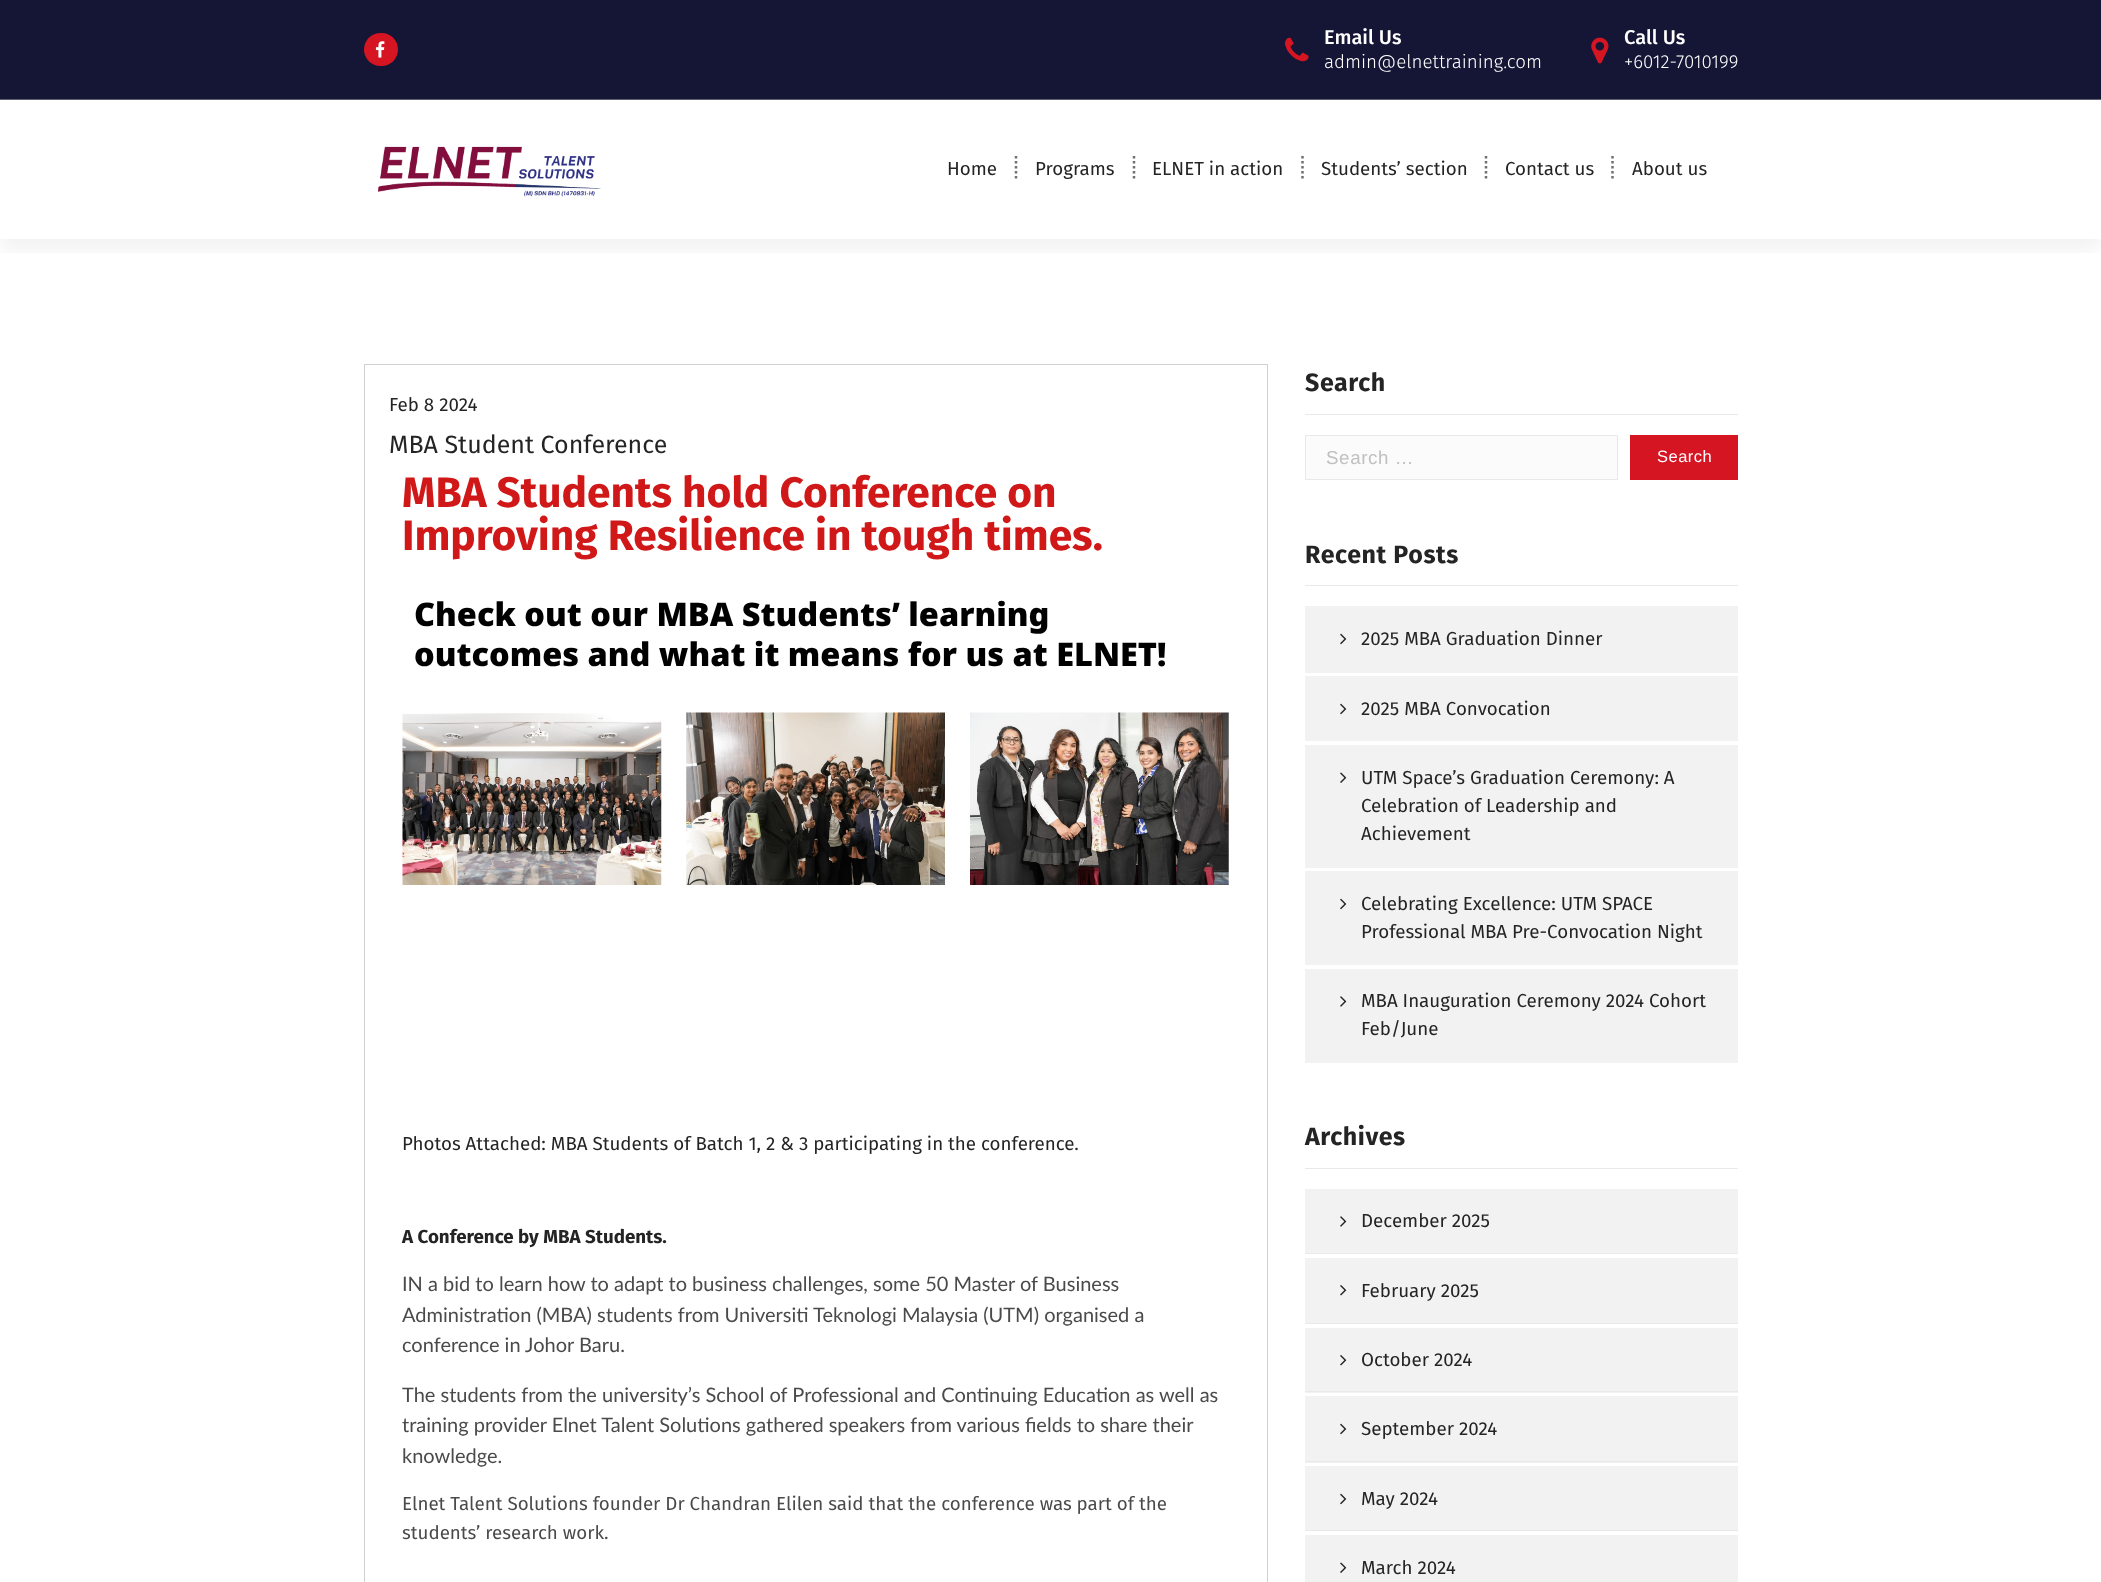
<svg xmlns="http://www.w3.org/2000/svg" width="2101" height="1582">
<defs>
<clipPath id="clip1"><rect x="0" y="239" width="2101" height="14"/></clipPath>
</defs>
<rect width="100%" height="100%" fill="#fff"/>
<rect width="2101" height="99" fill="#151635"/>
<rect y="99" width="2101" height="1" fill="#616172"/>
<rect x="364" y="33" width="34" height="33" rx="16.5" fill="#d61523"/>
<image x="375" y="41" width="10" height="17" href="media/1.png"/>
<image x="1285" y="37" width="24" height="25" href="media/2.png"/>
<text x="1324" y="44" style="font-family:Fira Sans;font-size:20px;font-weight:500;fill:#fff">Email Us</text>
<text x="1324" y="68" style="font-family:Fira Sans;font-size:18.75px;font-weight:300;fill:#fff">admin@elnettraining.com</text>
<image x="1591" y="37" width="18" height="27" href="media/3.png"/>
<text x="1624" y="44" style="font-family:Fira Sans;font-size:20px;font-weight:500;fill:#fff">Call Us</text>
<text x="1624" y="68" style="font-family:Fira Sans;font-size:18.75px;font-weight:300;fill:#fff">+6012-7010199</text>
<g clip-path="url(#clip1)">
<rect y="113" width="2101" height="138" fill="#0000000d" filter="blur(9.5px)"/>
</g>
<image x="378" y="146" width="223" height="51" href="media/4.png"/>
<text x="947" y="175" style="font-family:Fira Sans;font-size:18.75px;fill:#242424">Home</text>
<path d="M1016 156v25" fill="none" stroke="#717171" stroke-width="2.5" stroke-dasharray="2.5 2.5"/>
<text x="1035" y="175" style="font-family:Fira Sans;font-size:18.75px;fill:#242424">Programs</text>
<path d="M1134 156v25" fill="none" stroke="#717171" stroke-width="2.5" stroke-dasharray="2.5 2.5"/>
<text x="1152" y="175" style="font-family:Fira Sans;font-size:18.75px;fill:#242424">ELNET in action</text>
<path d="M1302.5 156v25" fill="none" stroke="#717171" stroke-width="2.5" stroke-dasharray="2.5 2.5"/>
<text x="1321" y="175" style="font-family:Fira Sans;font-size:18.75px;fill:#242424">Students’ section</text>
<path d="M1486 156v25" fill="none" stroke="#717171" stroke-width="2.5" stroke-dasharray="2.5 2.5"/>
<text x="1505" y="175" style="font-family:Fira Sans;font-size:18.75px;fill:#242424">Contact us</text>
<path d="M1612.5 156v25" fill="none" stroke="#717171" stroke-width="2.5" stroke-dasharray="2.5 2.5"/>
<text x="1632" y="175" style="font-family:Fira Sans;font-size:18.75px;fill:#242424">About us</text>
<rect x="364.5" y="364.5" width="903" height="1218" fill="none" stroke="#d0d0d0"/>
<text x="389" y="411" style="font-family:Fira Sans;font-size:18.75px;fill:#242424">Feb 8 2024</text>
<text x="389" y="453" style="font-family:Fira Sans;font-size:25px;fill:#242424">MBA Student Conference</text>
<text x="402" y="507" style="font-family:Fira Sans;font-size:42.5px;font-weight:bold;fill:#d11818">MBA Students hold Conference on</text>
<text x="402" y="550" style="font-family:Fira Sans;font-size:42.5px;font-weight:bold;fill:#d11818">Improving Resilience in tough times.</text>
<text x="414" y="626" style="font-family:Noto Sans;font-size:32.5px;font-weight:900;fill:#000">Check out our MBA Students’ learning</text>
<text x="414" y="666" style="font-family:Noto Sans;font-size:32.5px;font-weight:900;fill:#000">outcomes and what it means for us at ELNET!</text>
<image x="402" y="713" width="260" height="172" href="media/5.png"/>
<image x="686" y="712" width="259" height="173" href="media/6.png"/>
<image x="970" y="712" width="259" height="173" href="media/7.png"/>
<text x="402" y="1150" style="font-family:Fira Sans;font-size:18.75px;fill:#242424">Photos Attached: MBA Students of Batch 1, 2 &amp; 3 participating in the conference.</text>
<text x="402" y="1243" style="font-family:Fira Sans;font-size:18.75px;font-weight:bold;fill:#242424">A Conference by MBA Students.</text>
<text x="402" y="1291" style="font-family:Lato;font-size:20px;fill:#4a4a4a">IN a bid to learn how to adapt to business challenges, some 50 Master of Business</text>
<text x="402" y="1322" style="font-family:Lato;font-size:20px;fill:#4a4a4a">Administration (MBA) students from Universiti Teknologi Malaysia (UTM) organised a</text>
<text x="402" y="1352" style="font-family:Lato;font-size:20px;fill:#4a4a4a">conference in Johor Baru.</text>
<text x="402" y="1402" style="font-family:Lato;font-size:20px;fill:#4a4a4a">The students from the university’s School of Professional and Continuing Education as well as</text>
<text x="402" y="1432" style="font-family:Lato;font-size:20px;fill:#4a4a4a">training provider Elnet Talent Solutions gathered speakers from various fields to share their</text>
<text x="402" y="1463" style="font-family:Lato;font-size:20px;fill:#4a4a4a">knowledge.</text>
<text x="402" y="1510" style="font-family:Fira Sans;font-size:18.75px;fill:#4a4a4a">Elnet Talent Solutions founder Dr Chandran Elilen said that the conference was part of the</text>
<text x="402" y="1539" style="font-family:Fira Sans;font-size:18.75px;fill:#4a4a4a">students’ research work.</text>
<rect x="1305" y="414" width="433" height="1" fill="#e9e9ea"/>
<text x="1305" y="391" style="font-family:Fira Sans;font-size:25px;font-weight:bold;letter-spacing:0.6px;fill:#242424">Search</text>
<rect x="1305.5" y="435.5" width="312" height="44" fill="#fbfbfb" stroke="#e9e9ea"/>
<text x="1326" y="464" style="font-family:Liberation Sans;font-size:18.75px;letter-spacing:0.6px;fill:#c0c0c0">Search …</text>
<rect x="1630" y="435" width="108" height="45" fill="#d61523"/>
<text x="1657" y="462" style="font-family:Liberation Sans;font-size:16.5px;letter-spacing:0.5px;fill:#fff">Search</text>
<rect x="1305" y="585" width="433" height="1" fill="#e9e9ea"/>
<text x="1305" y="563" style="font-family:Fira Sans;font-size:25px;font-weight:bold;letter-spacing:0.6px;fill:#242424">Recent Posts</text>
<rect x="1305" y="606" width="433" height="67" fill="#f2f2f2"/>
<image x="1340" y="633" width="7" height="12" href="media/8.png"/>
<text x="1361" y="645" style="font-family:Fira Sans;font-size:18.75px;fill:#242424">2025 MBA Graduation Dinner</text>
<rect x="1305" y="676" width="433" height="65" fill="#f2f2f2"/>
<image x="1340" y="703" width="7" height="12" href="media/8.png"/>
<text x="1361" y="715" style="font-family:Fira Sans;font-size:18.75px;fill:#242424">2025 MBA Convocation</text>
<rect x="1305" y="745" width="433" height="123" fill="#f2f2f2"/>
<image x="1340" y="772" width="7" height="11" href="media/9.png"/>
<text x="1361" y="784" style="font-family:Fira Sans;font-size:18.75px;fill:#242424">UTM Space’s Graduation Ceremony: A</text>
<text x="1361" y="812" style="font-family:Fira Sans;font-size:18.75px;fill:#242424">Celebration of Leadership and</text>
<text x="1361" y="840" style="font-family:Fira Sans;font-size:18.75px;fill:#242424">Achievement</text>
<rect x="1305" y="871" width="433" height="94" fill="#f2f2f2"/>
<image x="1340" y="898" width="7" height="12" href="media/8.png"/>
<text x="1361" y="910" style="font-family:Fira Sans;font-size:18.75px;fill:#242424">Celebrating Excellence: UTM SPACE</text>
<text x="1361" y="938" style="font-family:Fira Sans;font-size:18.75px;fill:#242424">Professional MBA Pre-Convocation Night</text>
<rect x="1305" y="969" width="433" height="94" fill="#f2f2f2"/>
<image x="1340" y="996" width="7" height="11" href="media/10.png"/>
<text x="1361" y="1007" style="font-family:Fira Sans;font-size:18.75px;fill:#242424">MBA Inauguration Ceremony 2024 Cohort</text>
<text x="1361" y="1035" style="font-family:Fira Sans;font-size:18.75px;fill:#242424">Feb/June</text>
<rect x="1305" y="1168" width="433" height="1" fill="#e9e9ea"/>
<text x="1305" y="1145" style="font-family:Fira Sans;font-size:25px;font-weight:bold;letter-spacing:0.6px;fill:#242424">Archives</text>
<rect x="1305" y="1189" width="433" height="64" fill="#f2f2f2"/>
<image x="1340" y="1216" width="7" height="11" href="media/10.png"/>
<text x="1361" y="1227" style="font-family:Fira Sans;font-size:18.75px;fill:#242424">December 2025</text>
<rect x="1305" y="1253" width="433" height="1" fill="#e9e9ea"/>
<rect x="1305" y="1258" width="433" height="65" fill="#f2f2f2"/>
<image x="1340" y="1285" width="7" height="11" href="media/11.png"/>
<text x="1361" y="1297" style="font-family:Fira Sans;font-size:18.75px;fill:#242424">February 2025</text>
<rect x="1305" y="1323" width="433" height="1" fill="#e9e9ea"/>
<rect x="1305" y="1328" width="433" height="65" fill="#f2f2f2"/>
<image x="1340" y="1355" width="7" height="11" href="media/11.png"/>
<text x="1361" y="1366" style="font-family:Fira Sans;font-size:18.75px;fill:#242424">October 2024</text>
<rect x="1305" y="1391" width="433" height="1" fill="#e9e9ea"/>
<rect x="1305" y="1396" width="433" height="67" fill="#f2f2f2"/>
<image x="1340" y="1423" width="7" height="12" href="media/8.png"/>
<text x="1361" y="1435" style="font-family:Fira Sans;font-size:18.75px;fill:#242424">September 2024</text>
<rect x="1305" y="1461" width="433" height="1" fill="#e9e9ea"/>
<rect x="1305" y="1466" width="433" height="64" fill="#f2f2f2"/>
<image x="1340" y="1493" width="7" height="12" href="media/8.png"/>
<text x="1361" y="1505" style="font-family:Fira Sans;font-size:18.75px;fill:#242424">May 2024</text>
<rect x="1305" y="1530" width="433" height="1" fill="#e9e9ea"/>
<rect x="1305" y="1535" width="433" height="47" fill="#f2f2f2"/>
<image x="1340" y="1562" width="7" height="11" href="media/9.png"/>
<text x="1361" y="1574" style="font-family:Fira Sans;font-size:18.75px;fill:#242424">March 2024</text>
</svg>
